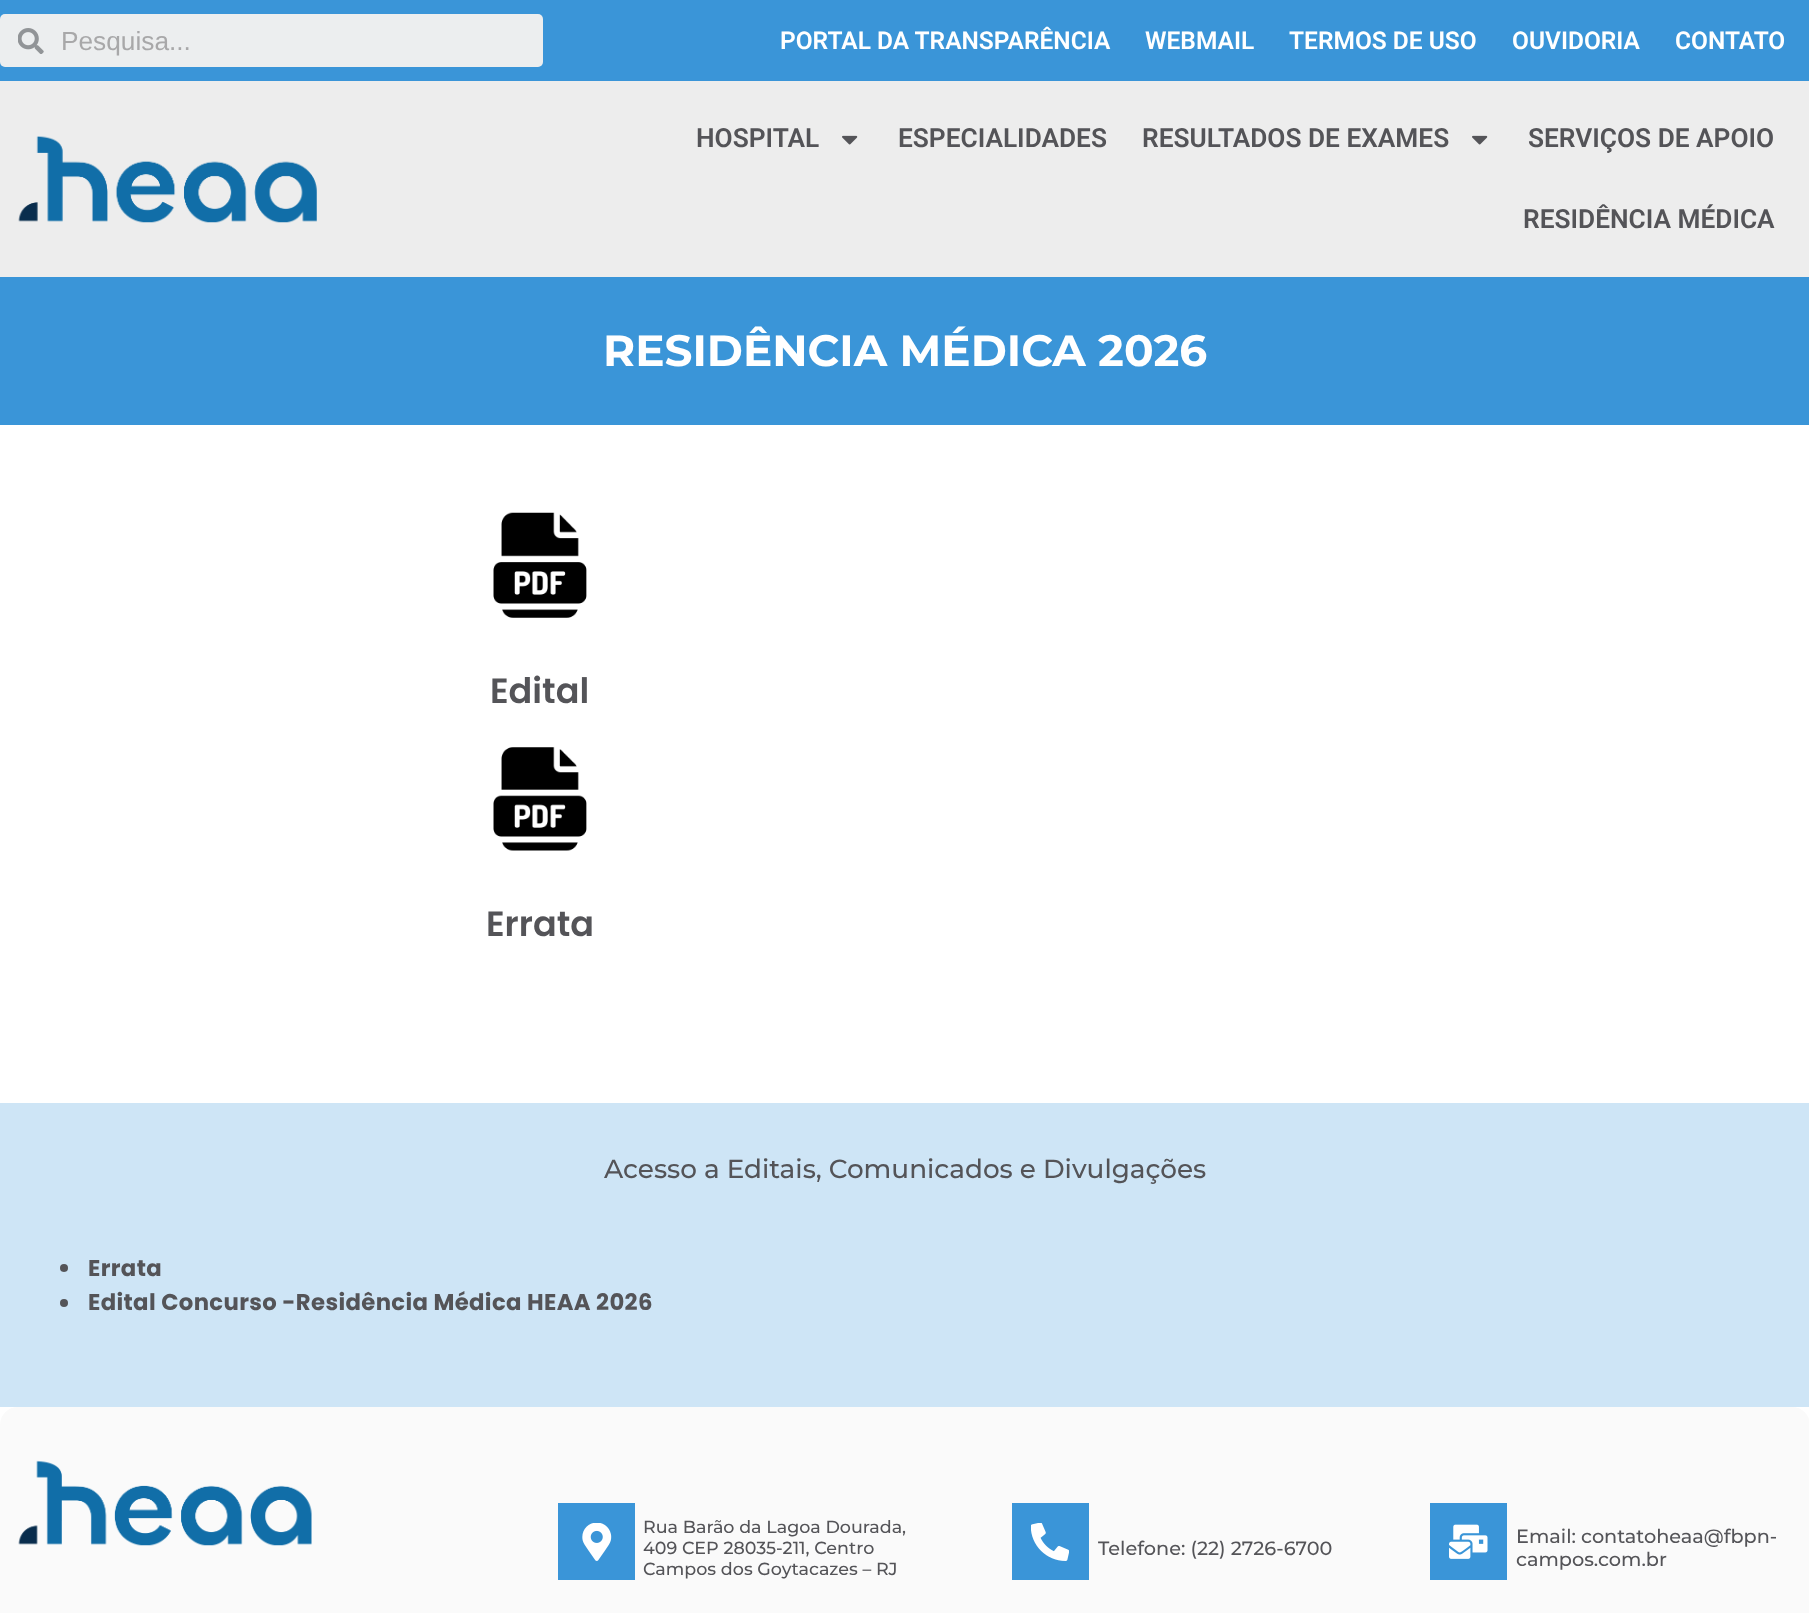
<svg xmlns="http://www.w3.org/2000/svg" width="1809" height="1613">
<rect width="100%" height="100%" fill="#fff"/>
<rect width="1809" height="81" fill="#3a95d8"/>
<rect y="14" width="543" height="53" rx="5" fill="#eceeef"/>
<image x="18" y="28" width="26" height="26" href="media/1.png"/>
<text x="61" y="50" style="font-family:Liberation Sans;font-size:26.25px;fill:#a8a8a9">Pesquisa...</text>
<text x="780" y="49" style="font-family:Roboto;font-size:24.5px;font-weight:600;fill:#fff">PORTAL DA TRANSPARÊNCIA</text>
<text x="1145" y="49" style="font-family:Roboto;font-size:24.5px;font-weight:600;fill:#fff">WEBMAIL</text>
<text x="1289" y="49" style="font-family:Roboto;font-size:24.5px;font-weight:600;fill:#fff">TERMOS DE USO</text>
<text x="1512" y="49" style="font-family:Roboto;font-size:24.5px;font-weight:600;fill:#fff">OUVIDORIA</text>
<text x="1675" y="49" style="font-family:Roboto;font-size:24.5px;font-weight:600;fill:#fff">CONTATO</text>
<rect y="81" width="1809" height="196" fill="#ededed"/>
<image x="18" y="136" width="299" height="87" href="media/2.png"/>
<text x="696" y="147" style="font-family:Roboto;font-size:26.25px;font-weight:600;fill:#545458">HOSPITAL</text>
<image x="842" y="135" width="16" height="10" href="media/3.png"/>
<text x="898" y="147" style="font-family:Roboto;font-size:26.25px;font-weight:600;fill:#545458">ESPECIALIDADES</text>
<text x="1142" y="147" style="font-family:Roboto;font-size:26.25px;font-weight:600;fill:#545458">RESULTADOS DE EXAMES</text>
<image x="1472" y="135" width="16" height="10" href="media/3.png"/>
<text x="1528" y="147" style="font-family:Roboto;font-size:26.25px;font-weight:600;fill:#545458">SERVIÇOS DE APOIO</text>
<text x="1523" y="228" style="font-family:Roboto;font-size:26.25px;font-weight:600;fill:#545458">RESIDÊNCIA MÉDICA</text>
<rect y="277" width="1809" height="148" fill="#3a95d8"/>
<text x="603" y="366" style="font-family:Montserrat;font-size:43.75px;font-weight:bold;fill:#fff">RESIDÊNCIA MÉDICA 2026</text>
<image x="493" y="512" width="94" height="106" href="media/4.png"/>
<text x="490" y="703" style="font-family:Poppins;font-size:35px;font-weight:600;fill:#545458">Edital</text>
<image x="493" y="747" width="94" height="104" href="media/5.png"/>
<text x="486" y="936" style="font-family:Poppins;font-size:35px;font-weight:600;fill:#545458">Errata</text>
<rect y="1103" width="1809" height="304" fill="#cee5f6"/>
<text x="604" y="1178" style="font-family:Montserrat;font-size:26.25px;font-weight:500;fill:#545458">Acesso a Editais, Comunicados e Divulgações</text>
<circle cx="64" cy="1268" r="4" fill="#545458"/>
<text x="88" y="1276" style="font-family:Poppins;font-size:22.75px;font-weight:bold;letter-spacing:0.35px;fill:#545458">Errata</text>
<circle cx="64" cy="1303" r="4" fill="#545458"/>
<text x="88" y="1310" style="font-family:Poppins;font-size:22.75px;font-weight:bold;letter-spacing:0.35px;fill:#545458">Edital Concurso -Residência Médica HEAA 2026</text>
<rect y="1407" width="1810" height="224" rx="18" fill="#fafafa"/>
<image x="18" y="1460" width="294" height="86" href="media/6.png"/>
<rect x="558" y="1503" width="77" height="77" fill="#3a95d8"/>
<image x="582" y="1523" width="30" height="38" href="media/7.png"/>
<text x="643" y="1533" style="font-family:Montserrat;font-size:17.5px;font-weight:500;fill:#545458">Rua Barão da Lagoa Dourada,</text>
<text x="643" y="1554" style="font-family:Montserrat;font-size:17.5px;font-weight:500;fill:#545458">409 CEP 28035-211, Centro</text>
<text x="643" y="1575" style="font-family:Montserrat;font-size:17.5px;font-weight:500;fill:#545458">Campos dos Goytacazes – RJ</text>
<rect x="1012" y="1503" width="77" height="77" fill="#3a95d8"/>
<image x="1031" y="1523" width="38" height="38" href="media/8.png"/>
<text x="1098" y="1555" style="font-family:Montserrat;font-size:19.25px;font-weight:500;fill:#545458">Telefone: (22) 2726-6700</text>
<rect x="1430" y="1503" width="77" height="77" fill="#3a95d8"/>
<image x="1449" y="1524" width="39" height="35" href="media/9.png"/>
<text x="1516" y="1543" style="font-family:Montserrat;font-size:19.25px;font-weight:500;fill:#545458">Email: contatoheaa@fbpn-</text>
<text x="1516" y="1566" style="font-family:Montserrat;font-size:19.25px;font-weight:500;fill:#545458">campos.com.br</text>
</svg>
